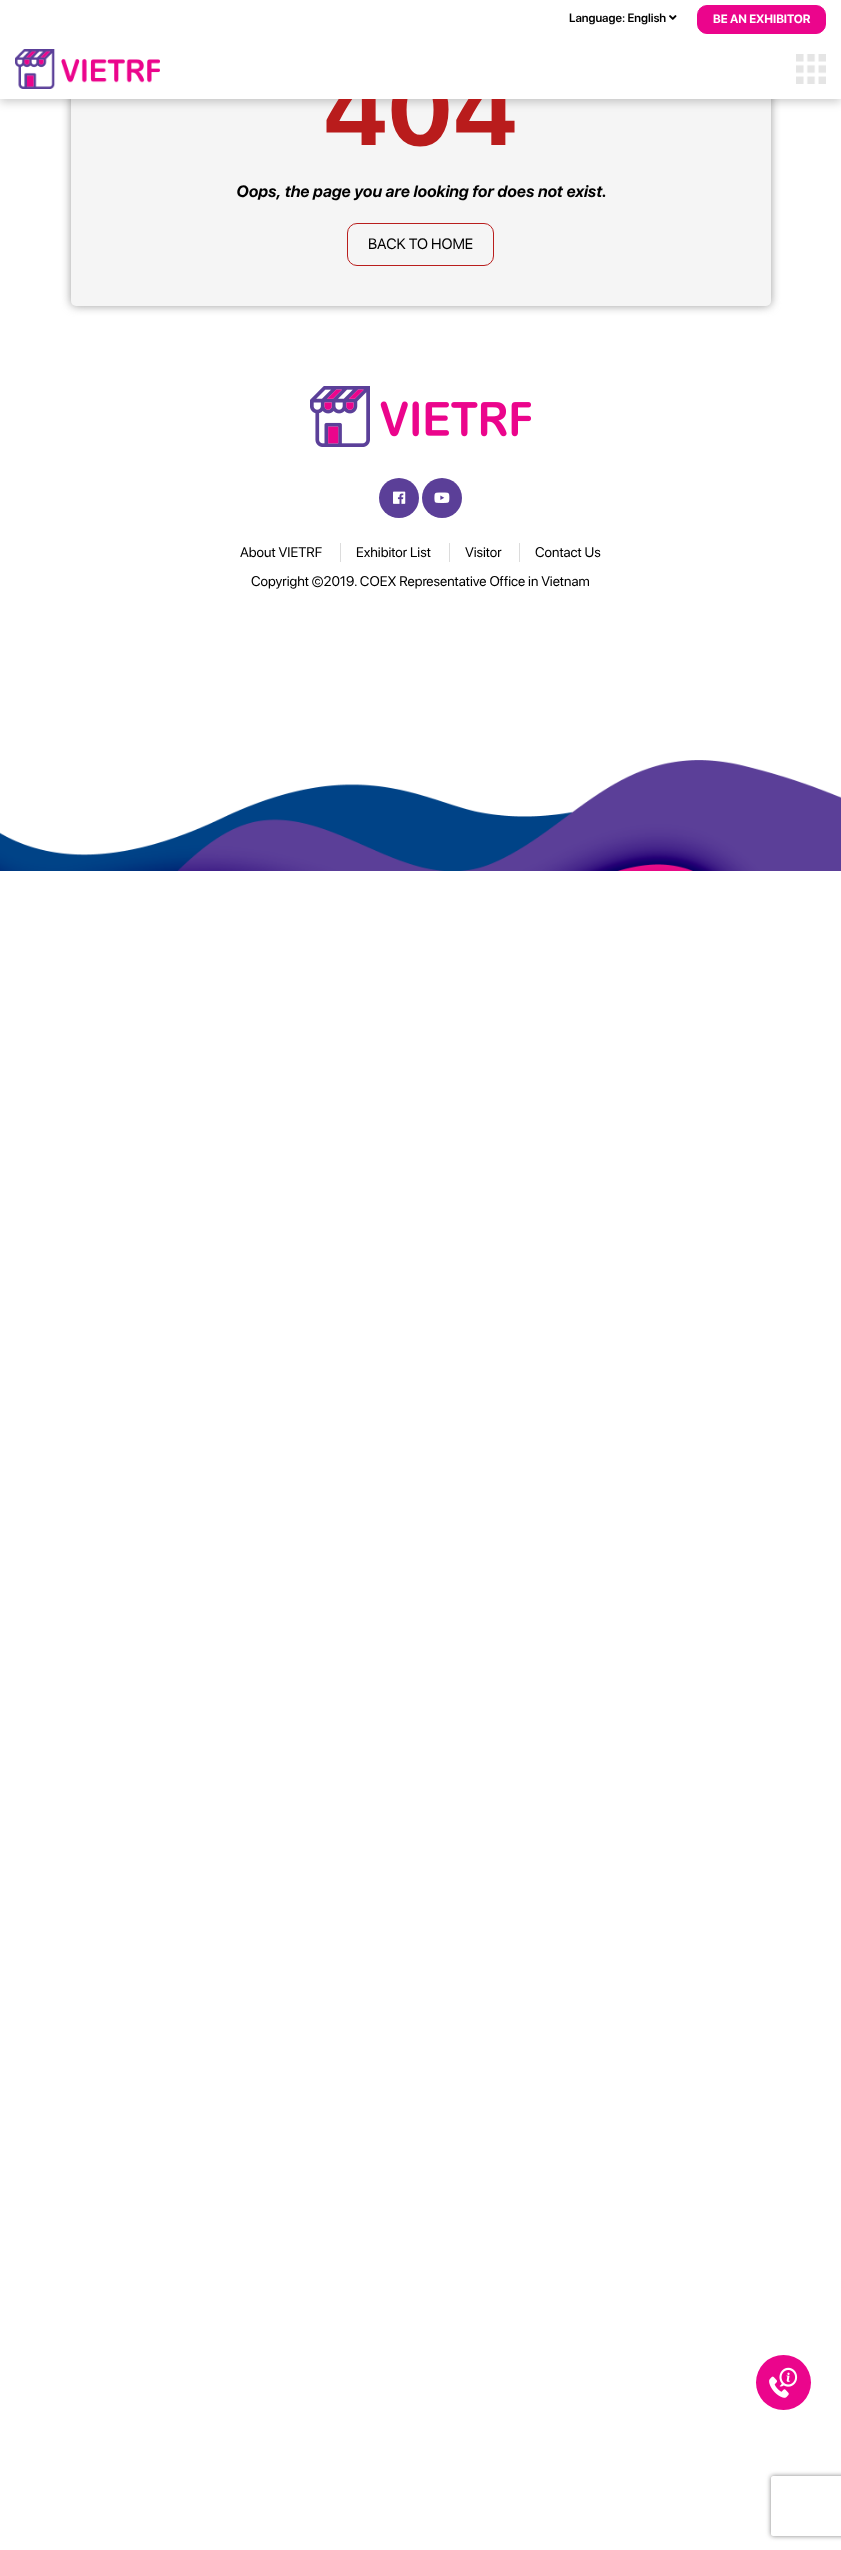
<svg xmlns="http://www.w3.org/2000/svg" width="841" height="2550">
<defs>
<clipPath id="clip1"><path d="M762 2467h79v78h-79zm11 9h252c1 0 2 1 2 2v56c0 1-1 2-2 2h-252c-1 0-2-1-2-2v-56c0-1 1-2 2-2z" clip-rule="evenodd"/></clipPath>
</defs>
<rect width="100%" height="100%" fill="#fff"/>
<rect x="71" width="700" height="306" rx="5" fill="#9c9c9c" filter="blur(5px)"/>
<rect x="71" width="700" height="306" rx="5" fill="#f5f5f5"/>
<rect y="3" width="841" height="99" fill="#00000033" filter="blur(5px)"/>
<text x="323" y="145" style="font-family:SF Pro Display;font-size:100px;font-weight:bold;fill:#b91c1c">404</text>
<rect width="841" height="99" fill="#fff"/>
<text x="569" y="22" style="font-family:SF Pro Display;font-size:12px;font-weight:600;fill:#000">Language: English</text>
<image x="669" y="15" width="8" height="5" href="media/1.png"/>
<rect x="697.5" y="5.5" width="128" height="28" rx="9.5" fill="#eb058c" stroke="#eb058c"/>
<text x="713" y="23" style="font-family:SF Pro Display;font-size:12px;font-weight:bold;fill:#fff">BE AN EXHIBITOR</text>
<image x="15" y="49" width="145" height="40" href="media/2.png"/>
<image x="796" y="54" width="30" height="30" href="media/3.png"/>
<text x="236" y="197" style="font-family:SF Pro Display;font-size:16.4px;font-weight:bold;font-style:italic;fill:#000">Oops, the page you are looking for does not exist.</text>
<rect x="347.5" y="223.5" width="146" height="42" rx="9.5" fill="none" stroke="#b91d1c"/>
<text x="368" y="249" style="font-family:SF Pro Display;font-size:15px;fill:#000">BACK TO HOME</text>
<image x="0" y="760" width="841" height="111" href="media/4.png"/>
<image x="310" y="386" width="221" height="61" href="media/5.png"/>
<circle cx="399" cy="498" r="20" fill="#5b3f98"/>
<image x="393" y="491" width="13" height="13" href="media/6.png"/>
<circle cx="442" cy="498" r="20" fill="#5b3f98"/>
<image x="434" y="492" width="16" height="11" href="media/7.png"/>
<text x="240" y="557" style="font-family:SF Pro Display;font-size:14px;fill:#000">About VIETRF</text>
<rect x="340" y="543" width="1" height="19" fill="#dcdcdc"/>
<text x="356" y="557" style="font-family:SF Pro Display;font-size:14px;fill:#000">Exhibitor List</text>
<rect x="449" y="543" width="1" height="19" fill="#dcdcdc"/>
<text x="465" y="557" style="font-family:SF Pro Display;font-size:14px;fill:#000">Visitor</text>
<rect x="519" y="543" width="1" height="19" fill="#dcdcdc"/>
<text x="535" y="557" style="font-family:SF Pro Display;font-size:14px;fill:#000">Contact Us</text>
<text x="251" y="586" style="font-family:SF Pro Display;font-size:14px;fill:#000">Copyright ©2019. COEX Representative Office in Vietnam</text>
<circle cx="783.5" cy="2382.5" r="27.5" fill="#eb058c"/>
<image x="769" y="2367" width="29" height="31" href="media/8.png"/>
<g clip-path="url(#clip1)">
<rect x="771" y="2476" width="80" height="60" rx="2" fill="#808080" filter="blur(2.5px)"/>
</g>
</svg>
